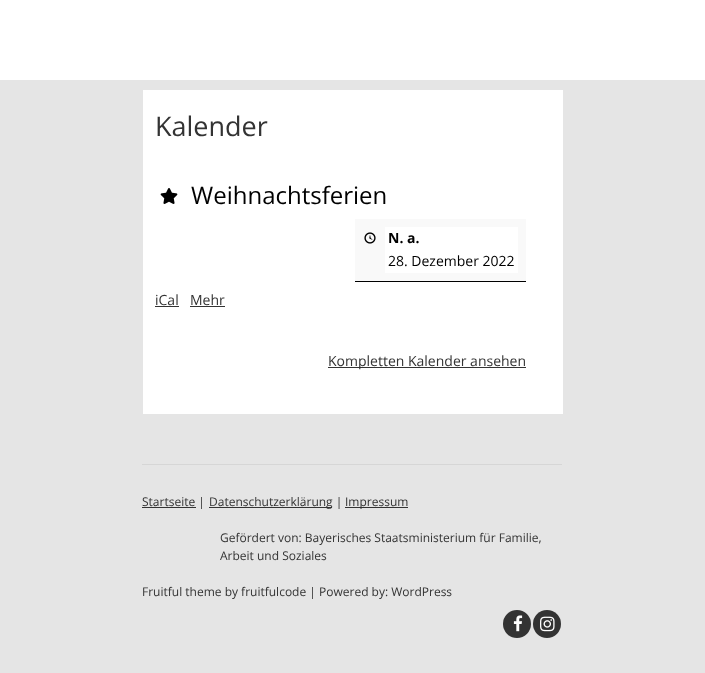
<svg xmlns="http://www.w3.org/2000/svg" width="705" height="673">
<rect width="100%" height="100%" fill="#e5e5e5"/>
<rect width="705" height="80" fill="#fff"/>
<rect x="143" y="90" width="420" height="324" fill="#fff"/>
<text x="155" y="136" style="font-family:Open Sans;font-size:27px;fill:#333">Kalender</text>
<image x="160" y="188" width="18" height="16" href="media/1.png"/>
<text x="191" y="204" style="font-family:Open Sans;font-size:24px;fill:#000">Weihnachtsferien</text>
<rect x="355" y="219" width="171" height="62" fill="#f9f9f9"/>
<rect x="355" y="281" width="171" height="1" fill="#000"/>
<image x="364" y="232" width="12" height="12" href="media/2.png"/>
<rect x="385" y="227" width="133" height="46" fill="#fff"/>
<text x="388" y="243" style="font-family:Open Sans;font-size:14px;font-weight:bold;fill:#000">N. a.</text>
<text x="388" y="266" style="font-family:Open Sans;font-size:14px;fill:#000">28. Dezember 2022</text>
<text x="155" y="305" style="font-family:Open Sans;font-size:14px;fill:#333">iCal</text>
<rect x="155" y="306" width="24" height="1" fill="#333"/>
<text x="190" y="305" style="font-family:Open Sans;font-size:14px;fill:#333">Mehr</text>
<rect x="190" y="306" width="35" height="1" fill="#333"/>
<rect x="328" y="367" width="198" height="1" fill="#333"/>
<text x="328" y="366" style="font-family:Open Sans;font-size:14px;fill:#333">Kompletten Kalender ansehen</text>
<rect x="142" y="464" width="420" height="1" fill="#d6d6d6"/>
<rect x="142" y="507" width="54" height="1" fill="#333"/>
<text x="142" y="506" style="font-family:Open Sans;font-size:12px;fill:#333">Startseite |</text>
<rect x="209" y="507" width="123" height="1" fill="#333"/>
<text x="209" y="506" style="font-family:Open Sans;font-size:12px;fill:#333">Datenschutzerklärung |</text>
<rect x="345" y="507" width="63" height="1" fill="#333"/>
<text x="345" y="506" style="font-family:Open Sans;font-size:12px;fill:#333">Impressum</text>
<text x="220" y="542" style="font-family:Open Sans;font-size:12px;fill:#333">Gefördert von: Bayerisches Staatsministerium für Familie,</text>
<text x="220" y="560" style="font-family:Open Sans;font-size:12px;fill:#333">Arbeit und Soziales</text>
<text x="142" y="596" style="font-family:Open Sans;font-size:12px;fill:#333">Fruitful theme by fruitfulcode | Powered by: WordPress</text>
<circle cx="517" cy="624" r="14" fill="#333"/>
<image x="513" y="615" width="10" height="17" href="media/3.png"/>
<circle cx="547" cy="624" r="14" fill="#333"/>
<image x="540" y="616" width="15" height="16" href="media/4.png"/>
</svg>
